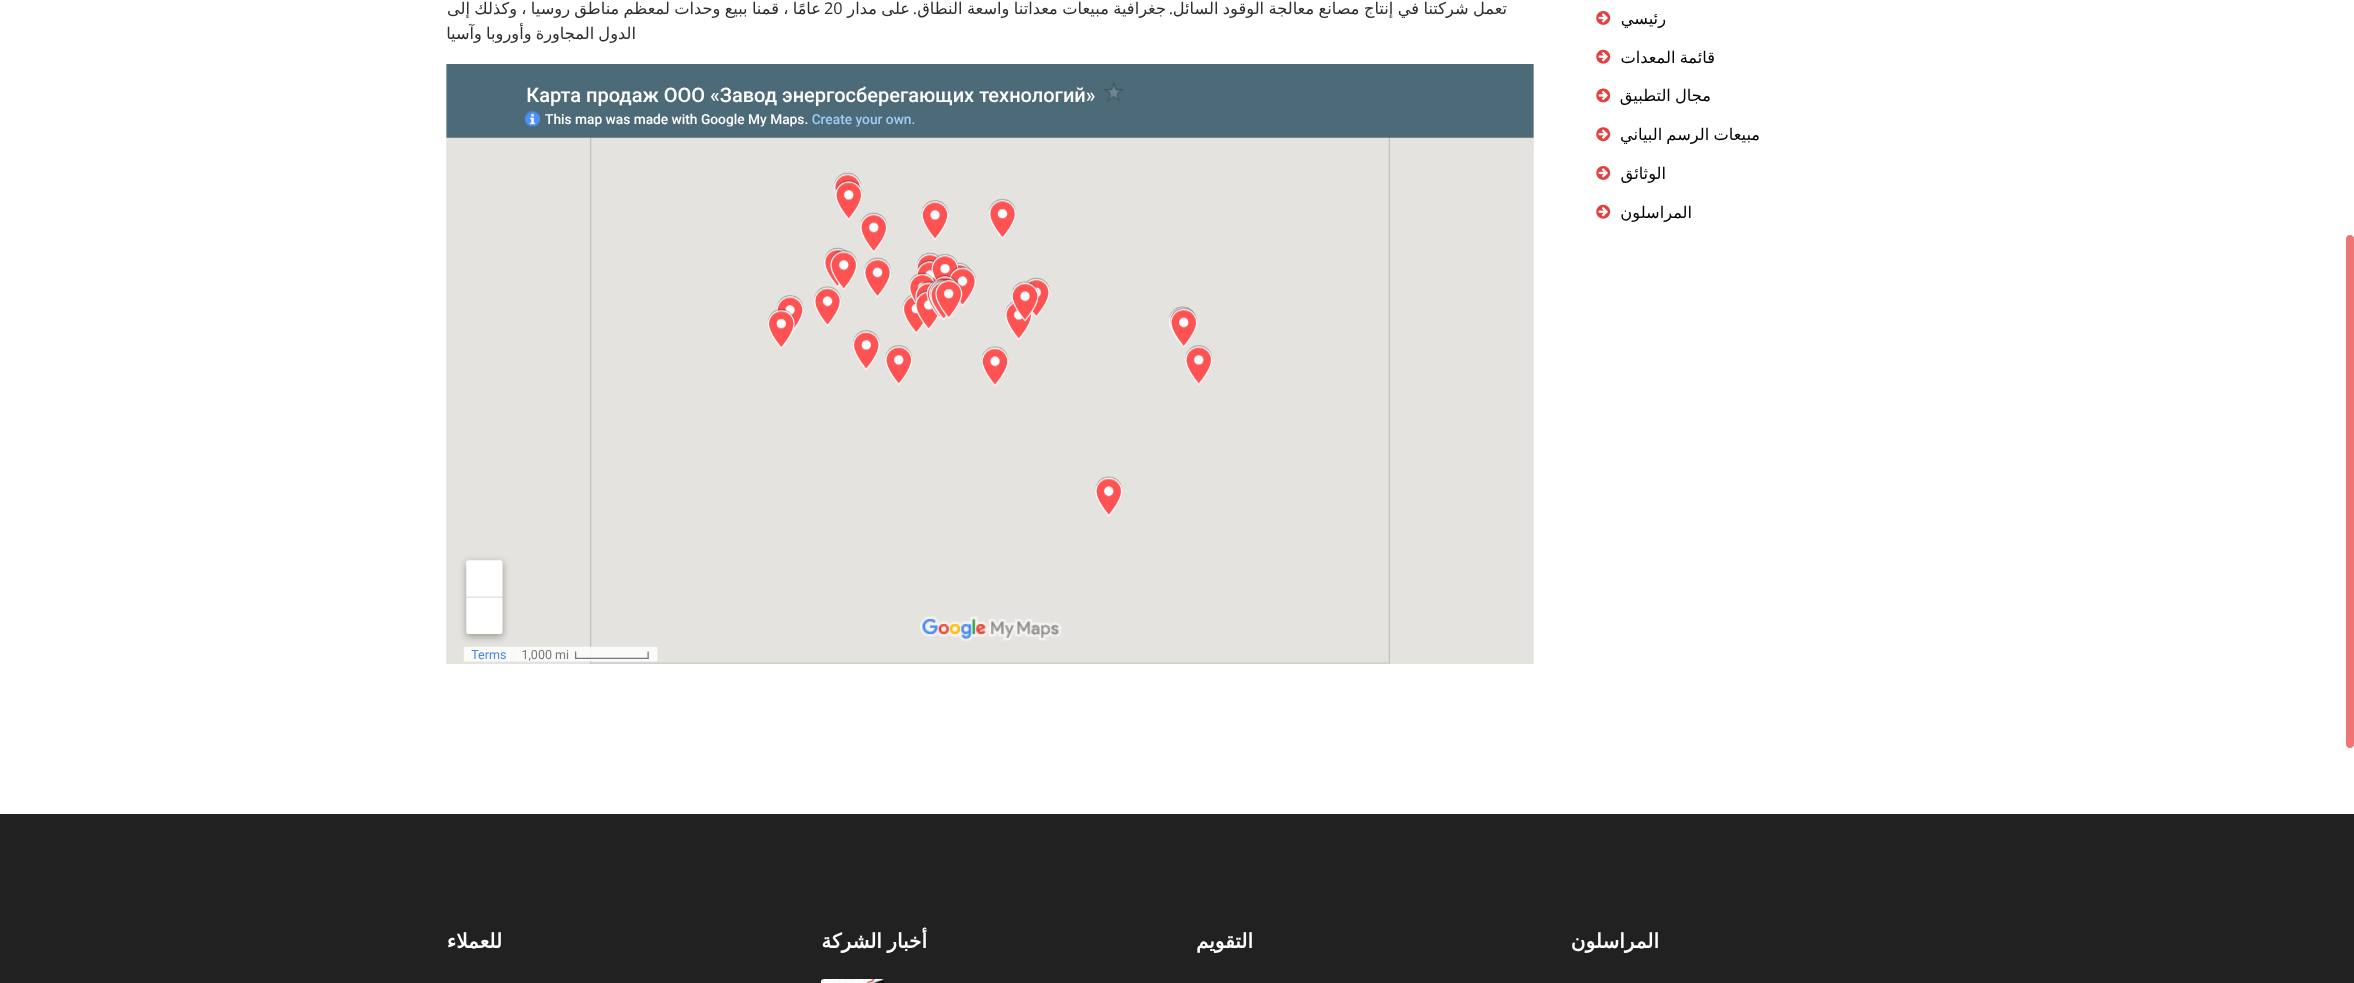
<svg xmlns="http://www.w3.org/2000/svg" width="2354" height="983">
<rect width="100%" height="100%" fill="#fff"/>
<rect x="2345.5" y="234.5" width="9" height="514" rx="4.5" fill="#ef7575" stroke="#fff"/>
<text x="1666" y="24" style="font-family:DejaVu Sans;font-size:16.25px;direction:rtl;fill:#000">رئيسي</text>
<image x="1596" y="11" width="15" height="14" href="media/1.png"/>
<text x="1715" y="63" word-spacing="-1" style="font-family:DejaVu Sans;font-size:16.25px;direction:rtl;fill:#000">قائمة المعدات</text>
<image x="1596" y="49" width="15" height="15" href="media/2.png"/>
<text x="1711" y="101" word-spacing="-1" style="font-family:DejaVu Sans;font-size:16.25px;direction:rtl;fill:#000">مجال التطبيق</text>
<image x="1596" y="88" width="15" height="15" href="media/3.png"/>
<text x="1760" y="140" word-spacing="-1" style="font-family:DejaVu Sans;font-size:16.25px;direction:rtl;fill:#000">مبيعات الرسم البياني</text>
<image x="1596" y="127" width="15" height="15" href="media/4.png"/>
<text x="1666" y="179" style="font-family:DejaVu Sans;font-size:16.25px;direction:rtl;fill:#000">الوثائق</text>
<image x="1596" y="166" width="15" height="14" href="media/1.png"/>
<text x="1692" y="218" style="font-family:DejaVu Sans;font-size:16.25px;direction:rtl;fill:#000">المراسلون</text>
<image x="1596" y="204" width="15" height="15" href="media/2.png"/>
<text x="1507" y="14" word-spacing="-0.75" style="font-family:DejaVu Sans;font-size:16.25px;direction:rtl;fill:#2d2d2d">تعمل شركتنا في إنتاج مصانع معالجة الوقود السائل</text>
<text x="1173" y="14" style="font-family:Open Sans;font-size:16.25px;direction:rtl;fill:#2d2d2d">.</text>
<text x="1166" y="14" word-spacing="-0.75" style="font-family:DejaVu Sans;font-size:16.25px;direction:rtl;fill:#2d2d2d">جغرافية مبيعات معداتنا واسعة النطاق</text>
<text x="917" y="14" style="font-family:Open Sans;font-size:16.25px;direction:rtl;fill:#2d2d2d">.</text>
<text x="910" y="14" word-spacing="-0.75" style="font-family:DejaVu Sans;font-size:16.25px;direction:rtl;fill:#2d2d2d">على مدار</text>
<text x="824" y="14" style="font-family:Open Sans;font-size:16.25px;fill:#2d2d2d">20</text>
<text x="821" y="14" word-spacing="-0.9" style="font-family:DejaVu Sans;font-size:16.25px;direction:rtl;fill:#2d2d2d">عامًا ، قمنا ببيع وحدات لمعظم مناطق روسيا ، وكذلك إلى</text>
<text x="636" y="39" word-spacing="-1" style="font-family:DejaVu Sans;font-size:16.25px;direction:rtl;fill:#2d2d2d">الدول المجاورة وأوروبا وآسيا</text>
<image x="446" y="64" width="1088" height="600" href="media/5.png"/>
<rect y="814" width="2354" height="169" fill="#212121"/>
<text x="1659" y="948" style="font-family:DejaVu Sans;font-size:20px;font-weight:bold;direction:rtl;fill:#fff">المراسلون</text>
<text x="1253" y="948" style="font-family:DejaVu Sans;font-size:20px;font-weight:bold;direction:rtl;fill:#fff">التقويم</text>
<text x="927" y="948" word-spacing="-1" style="font-family:DejaVu Sans;font-size:20px;font-weight:bold;direction:rtl;fill:#fff">أخبار الشركة</text>
<image x="821" y="979" width="63" height="4" href="media/6.png"/>
<text x="502" y="948" style="font-family:DejaVu Sans;font-size:20px;font-weight:bold;direction:rtl;fill:#fff">للعملاء</text>
</svg>
